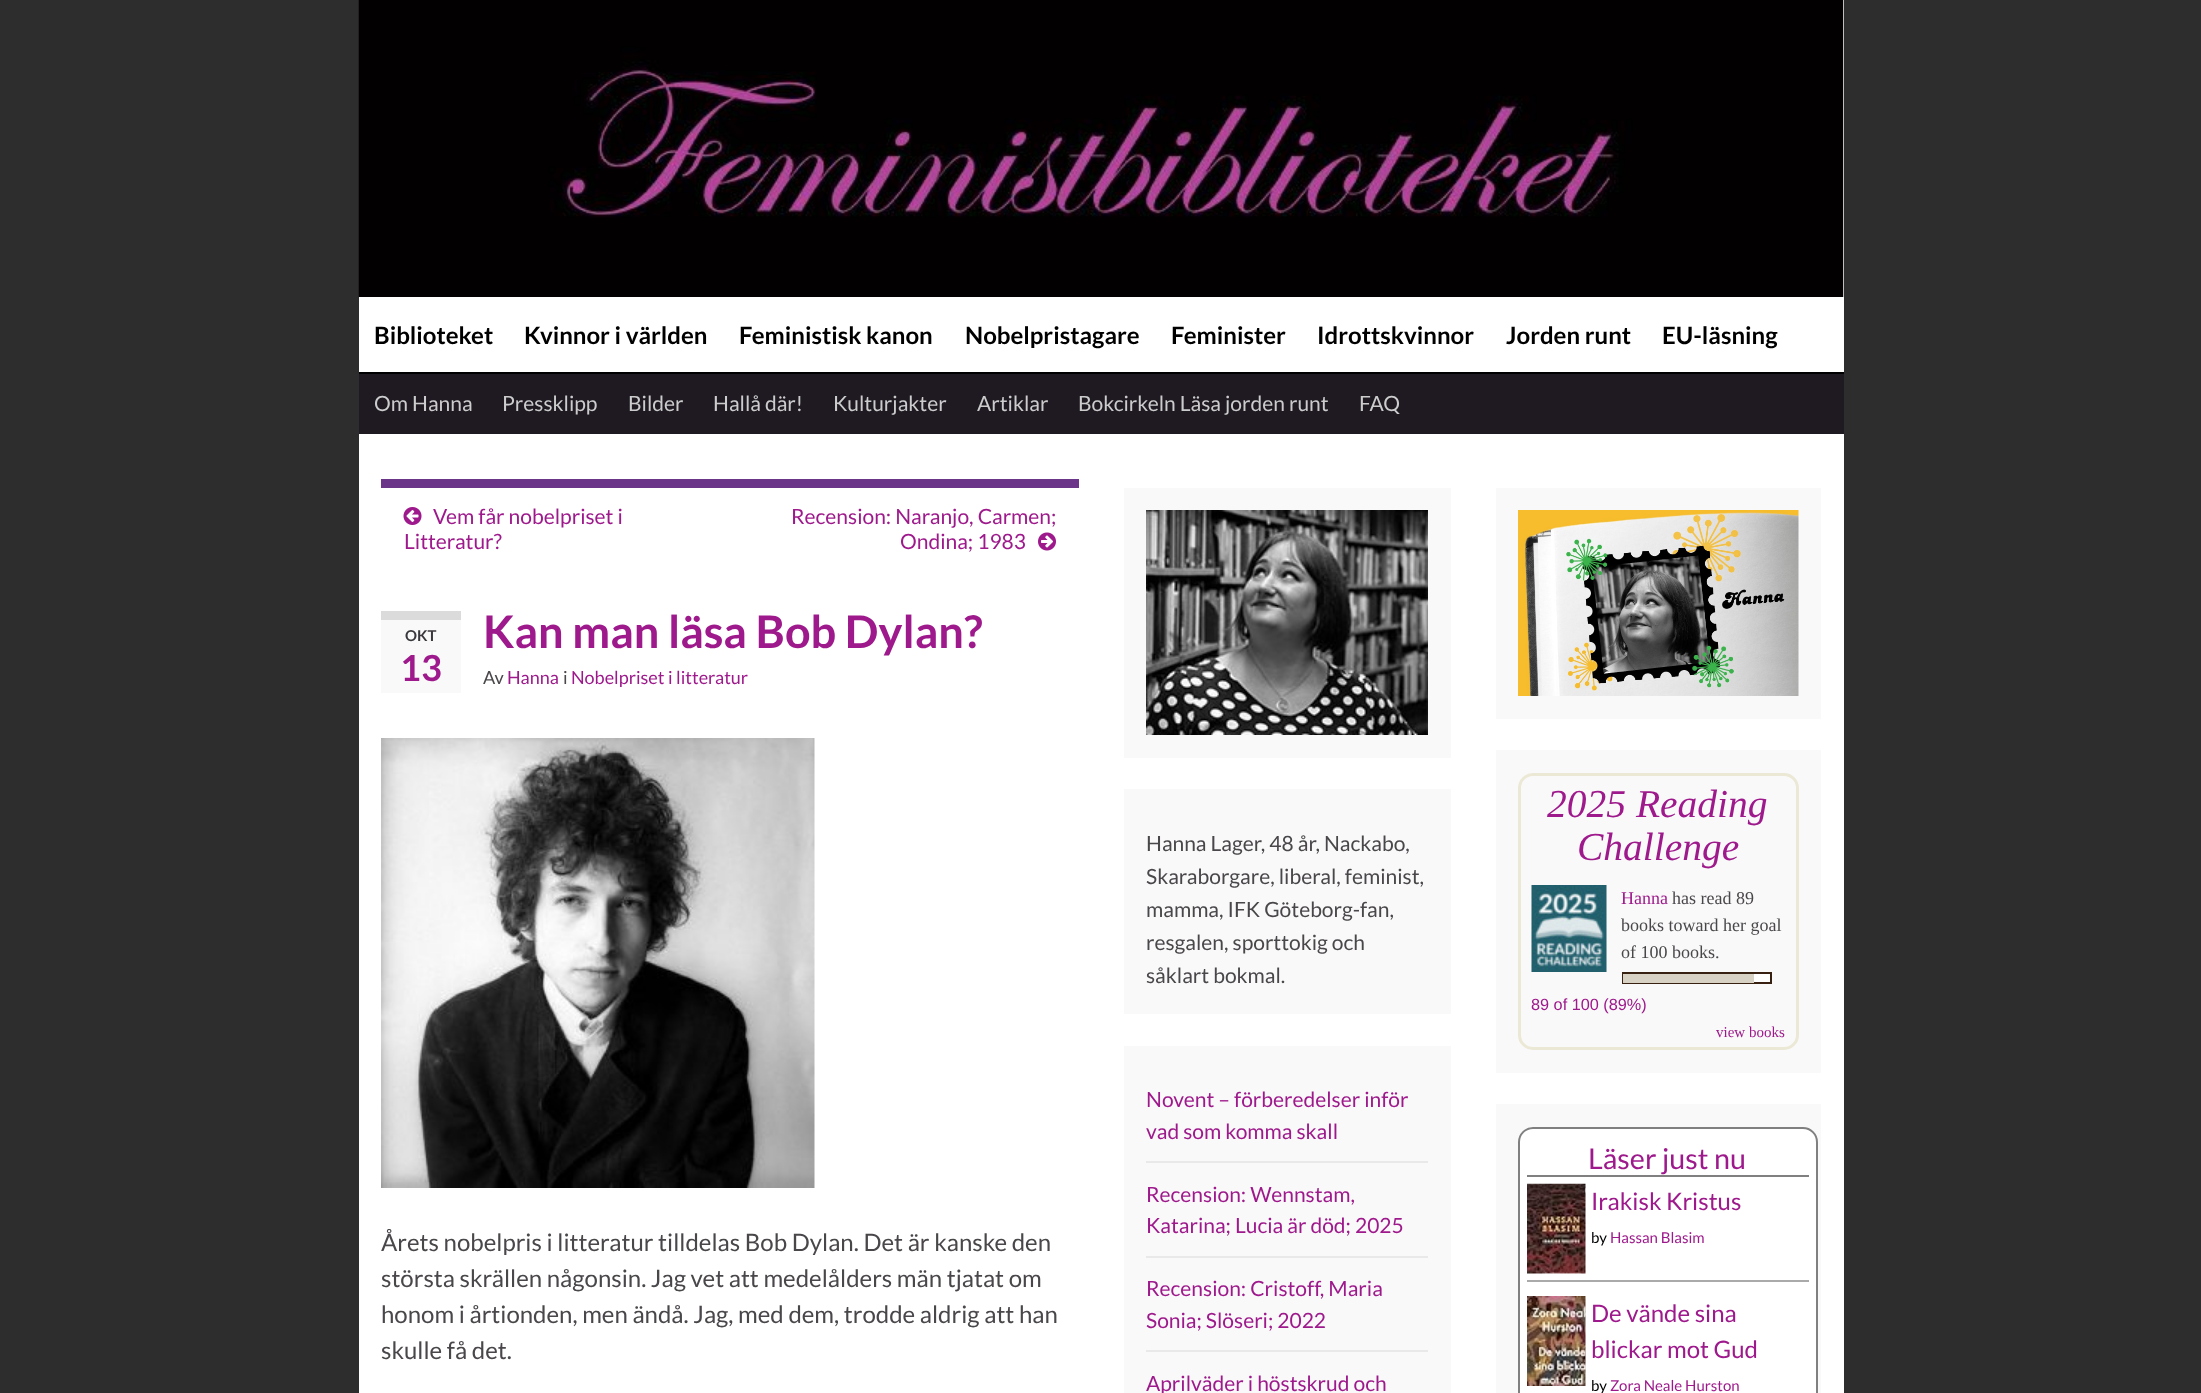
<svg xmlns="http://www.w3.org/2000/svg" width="2201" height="1393">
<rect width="100%" height="100%" fill="#2d2d2d"/>
<rect x="1843" width="1" height="297" fill="#fff"/>
<image x="358" y="0" width="1486" height="297" href="media/1.png"/>
<rect x="359" y="297" width="1485" height="75" fill="#fff"/>
<text x="374" y="344" style="font-family:Lato;font-size:24px;font-weight:bold;fill:#000">Biblioteket</text>
<text x="524" y="344" style="font-family:Lato;font-size:24px;font-weight:bold;fill:#000">Kvinnor i världen</text>
<text x="739" y="344" style="font-family:Lato;font-size:24px;font-weight:bold;fill:#000">Feministisk kanon</text>
<text x="965" y="344" style="font-family:Lato;font-size:24px;font-weight:bold;fill:#000">Nobelpristagare</text>
<text x="1171" y="344" style="font-family:Lato;font-size:24px;font-weight:bold;fill:#000">Feminister</text>
<text x="1317" y="344" style="font-family:Lato;font-size:24px;font-weight:bold;fill:#000">Idrottskvinnor</text>
<text x="1506" y="344" style="font-family:Lato;font-size:24px;font-weight:bold;fill:#000">Jorden runt</text>
<text x="1662" y="344" style="font-family:Lato;font-size:24px;font-weight:bold;fill:#000">EU-läsning</text>
<rect x="359" y="374" width="1485" height="60" fill="#1f1a22"/>
<rect x="359" y="372" width="1485" height="2" fill="#000"/>
<text x="374" y="411" style="font-family:Lato;font-size:21px;fill:#ccc">Om Hanna</text>
<text x="502" y="411" style="font-family:Lato;font-size:21px;fill:#ccc">Pressklipp</text>
<text x="628" y="411" style="font-family:Lato;font-size:21px;fill:#ccc">Bilder</text>
<text x="713" y="411" style="font-family:Lato;font-size:21px;fill:#ccc">Hallå där!</text>
<text x="833" y="411" style="font-family:Lato;font-size:21px;fill:#ccc">Kulturjakter</text>
<text x="977" y="411" style="font-family:Lato;font-size:21px;fill:#ccc">Artiklar</text>
<text x="1078" y="411" style="font-family:Lato;font-size:21px;fill:#ccc">Bokcirkeln Läsa jorden runt</text>
<text x="1359" y="411" style="font-family:Lato;font-size:21px;fill:#ccc">FAQ</text>
<rect x="359" y="434" width="1485" height="959" fill="#fff"/>
<rect x="381" y="479" width="698" height="9" fill="#6b3589"/>
<image x="403" y="507" width="19" height="18" href="media/2.png"/>
<text x="433" y="524" style="font-family:Lato;font-size:21px;fill:#9e1a8c">Vem får nobelpriset i</text>
<text x="404" y="549" style="font-family:Lato;font-size:21px;fill:#9e1a8c">Litteratur?</text>
<text x="791" y="524" style="font-family:Lato;font-size:21px;fill:#9e1a8c">Recension: Naranjo, Carmen;</text>
<text x="900" y="549" style="font-family:Lato;font-size:21px;fill:#9e1a8c">Ondina; 1983</text>
<image x="1038" y="532" width="18" height="19" href="media/3.png"/>
<rect x="381" y="620" width="80" height="73" fill="#f9f9f9"/>
<rect x="381" y="611" width="80" height="9" fill="#dbdbdb"/>
<text x="405" y="641" style="font-family:Lato;font-size:15px;font-weight:bold;fill:#3b383d">OKT</text>
<text x="400" y="681" style="font-family:Lato;font-size:36px;font-weight:bold;fill:#9e1a8c">13</text>
<text x="483" y="648" style="font-family:Lato;font-size:45px;font-weight:bold;fill:#9e1a8c">Kan man läsa Bob Dylan?</text>
<text x="483" y="684" style="font-family:Lato;font-size:18px;fill:#4a474b">Av</text>
<text x="507" y="684" style="font-family:Lato;font-size:18px;fill:#9e1a8c">Hanna</text>
<text x="563" y="684" style="font-family:Lato;font-size:18px;fill:#4a474b">i</text>
<text x="571" y="684" style="font-family:Lato;font-size:18px;fill:#9e1a8c">Nobelpriset i litteratur</text>
<image x="381" y="738" width="434" height="450" href="media/4.png"/>
<text x="381" y="1251" style="font-family:Lato;font-size:24px;fill:#4a474b">Årets nobelpris i litteratur tilldelas Bob Dylan. Det är kanske den</text>
<text x="381" y="1287" style="font-family:Lato;font-size:24px;fill:#4a474b">största skrällen någonsin. Jag vet att medelålders män tjatat om</text>
<text x="381" y="1323" style="font-family:Lato;font-size:24px;fill:#4a474b">honom i årtionden, men ändå. Jag, med dem, trodde aldrig att han</text>
<text x="381" y="1359" style="font-family:Lato;font-size:24px;fill:#4a474b">skulle få det.</text>
<rect x="1124" y="488" width="327" height="270" fill="#f9f9f9"/>
<image x="1146" y="510" width="282" height="225" href="media/5.png"/>
<rect x="1124" y="789" width="327" height="225" fill="#f9f9f9"/>
<text x="1146" y="851" style="font-family:Lato;font-size:21px;fill:#4a474b">Hanna Lager, 48 år, Nackabo,</text>
<text x="1146" y="884" style="font-family:Lato;font-size:21px;fill:#4a474b">Skaraborgare, liberal, feminist,</text>
<text x="1146" y="917" style="font-family:Lato;font-size:21px;fill:#4a474b">mamma, IFK Göteborg-fan,</text>
<text x="1146" y="950" style="font-family:Lato;font-size:21px;fill:#4a474b">resgalen, sporttokig och</text>
<text x="1146" y="983" style="font-family:Lato;font-size:21px;fill:#4a474b">såklart bokmal.</text>
<rect x="1124" y="1046" width="327" height="347" fill="#f9f9f9"/>
<rect x="1146" y="1161" width="282" height="2" fill="#e9e9e9"/>
<text x="1146" y="1107" style="font-family:Lato;font-size:21px;fill:#9e1a8c">Novent – förberedelser inför</text>
<text x="1146" y="1139" style="font-family:Lato;font-size:21px;fill:#9e1a8c">vad som komma skall</text>
<rect x="1146" y="1256" width="282" height="2" fill="#e9e9e9"/>
<text x="1146" y="1202" style="font-family:Lato;font-size:21px;fill:#9e1a8c">Recension: Wennstam,</text>
<text x="1146" y="1233" style="font-family:Lato;font-size:21px;fill:#9e1a8c">Katarina; Lucia är död; 2025</text>
<rect x="1146" y="1350" width="282" height="2" fill="#e9e9e9"/>
<text x="1146" y="1296" style="font-family:Lato;font-size:21px;fill:#9e1a8c">Recension: Cristoff, Maria</text>
<text x="1146" y="1328" style="font-family:Lato;font-size:21px;fill:#9e1a8c">Sonia; Slöseri; 2022</text>
<text x="1146" y="1391" style="font-family:Lato;font-size:21px;fill:#9e1a8c">Aprilväder i höstskrud och</text>
<rect x="1496" y="488" width="325" height="231" fill="#f9f9f9"/>
<image x="1518" y="510" width="281" height="186" href="media/6.png"/>
<rect x="1496" y="750" width="325" height="323" fill="#f9f9f9"/>
<rect x="1519.5" y="774.5" width="278" height="274" rx="13.5" fill="none" stroke="#ebe8d5" stroke-width="3"/>
<text x="1547" y="817" style="font-family:Liberation Serif;font-size:39.5px;font-style:italic;fill:#9e1a8c">2025 Reading</text>
<text x="1577" y="860" style="font-family:Liberation Serif;font-size:39.5px;font-style:italic;fill:#9e1a8c">Challenge</text>
<image x="1531" y="885" width="76" height="87" href="media/7.png"/>
<text x="1621" y="904" style="font-family:Liberation Serif;font-size:18px;fill:#9e1a8c">Hanna</text>
<text x="1672" y="904" style="font-family:Liberation Serif;font-size:18px;fill:#4a474b">has read 89</text>
<text x="1621" y="931" style="font-family:Liberation Serif;font-size:18px;fill:#4a474b">books toward her goal</text>
<text x="1621" y="958" style="font-family:Liberation Serif;font-size:18px;fill:#4a474b">of 100 books.</text>
<rect x="1754" y="974" width="16" height="8" fill="#fff"/>
<rect x="1623" y="973" width="148" height="10" fill="none" stroke="#382110" stroke-width="2"/>
<rect x="1623" y="974" width="131" height="9" fill="#d7d2c4"/>
<text x="1531" y="1010" style="font-family:Liberation Sans;font-size:16.25px;fill:#9e1a8c">89 of 100 (89%)</text>
<text x="1716" y="1037" style="font-family:Liberation Serif;font-size:15px;fill:#9e1a8c">view books</text>
<rect x="1496" y="1104" width="325" height="289" fill="#f9f9f9"/>
<rect x="1519" y="1128" width="298" height="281" rx="14" fill="#fff" stroke="#808080" stroke-width="2"/>
<rect x="1527" y="1175" width="282" height="2" fill="#808080"/>
<text x="1588" y="1169" style="font-family:Lato;font-size:28.75px;fill:#9e1a8c">Läser just nu</text>
<rect x="1527" y="1280" width="282" height="2" fill="#aaa"/>
<image x="1527" y="1183" width="59" height="91" href="media/8.png"/>
<text x="1591" y="1210" style="font-family:Lato;font-size:24px;fill:#9e1a8c">Irakisk Kristus</text>
<text x="1591" y="1243" style="font-family:Lato;font-size:15px;fill:#000">by</text>
<text x="1610" y="1243" style="font-family:Lato;font-size:15px;fill:#9e1a8c">Hassan Blasim</text>
<image x="1527" y="1296" width="59" height="90" href="media/9.png"/>
<text x="1591" y="1322" style="font-family:Lato;font-size:24px;fill:#9e1a8c">De vände sina</text>
<text x="1591" y="1358" style="font-family:Lato;font-size:24px;fill:#9e1a8c">blickar mot Gud</text>
<text x="1591" y="1391" style="font-family:Lato;font-size:15px;fill:#000">by</text>
<text x="1610" y="1391" style="font-family:Lato;font-size:15px;fill:#9e1a8c">Zora Neale Hurston</text>
</svg>
